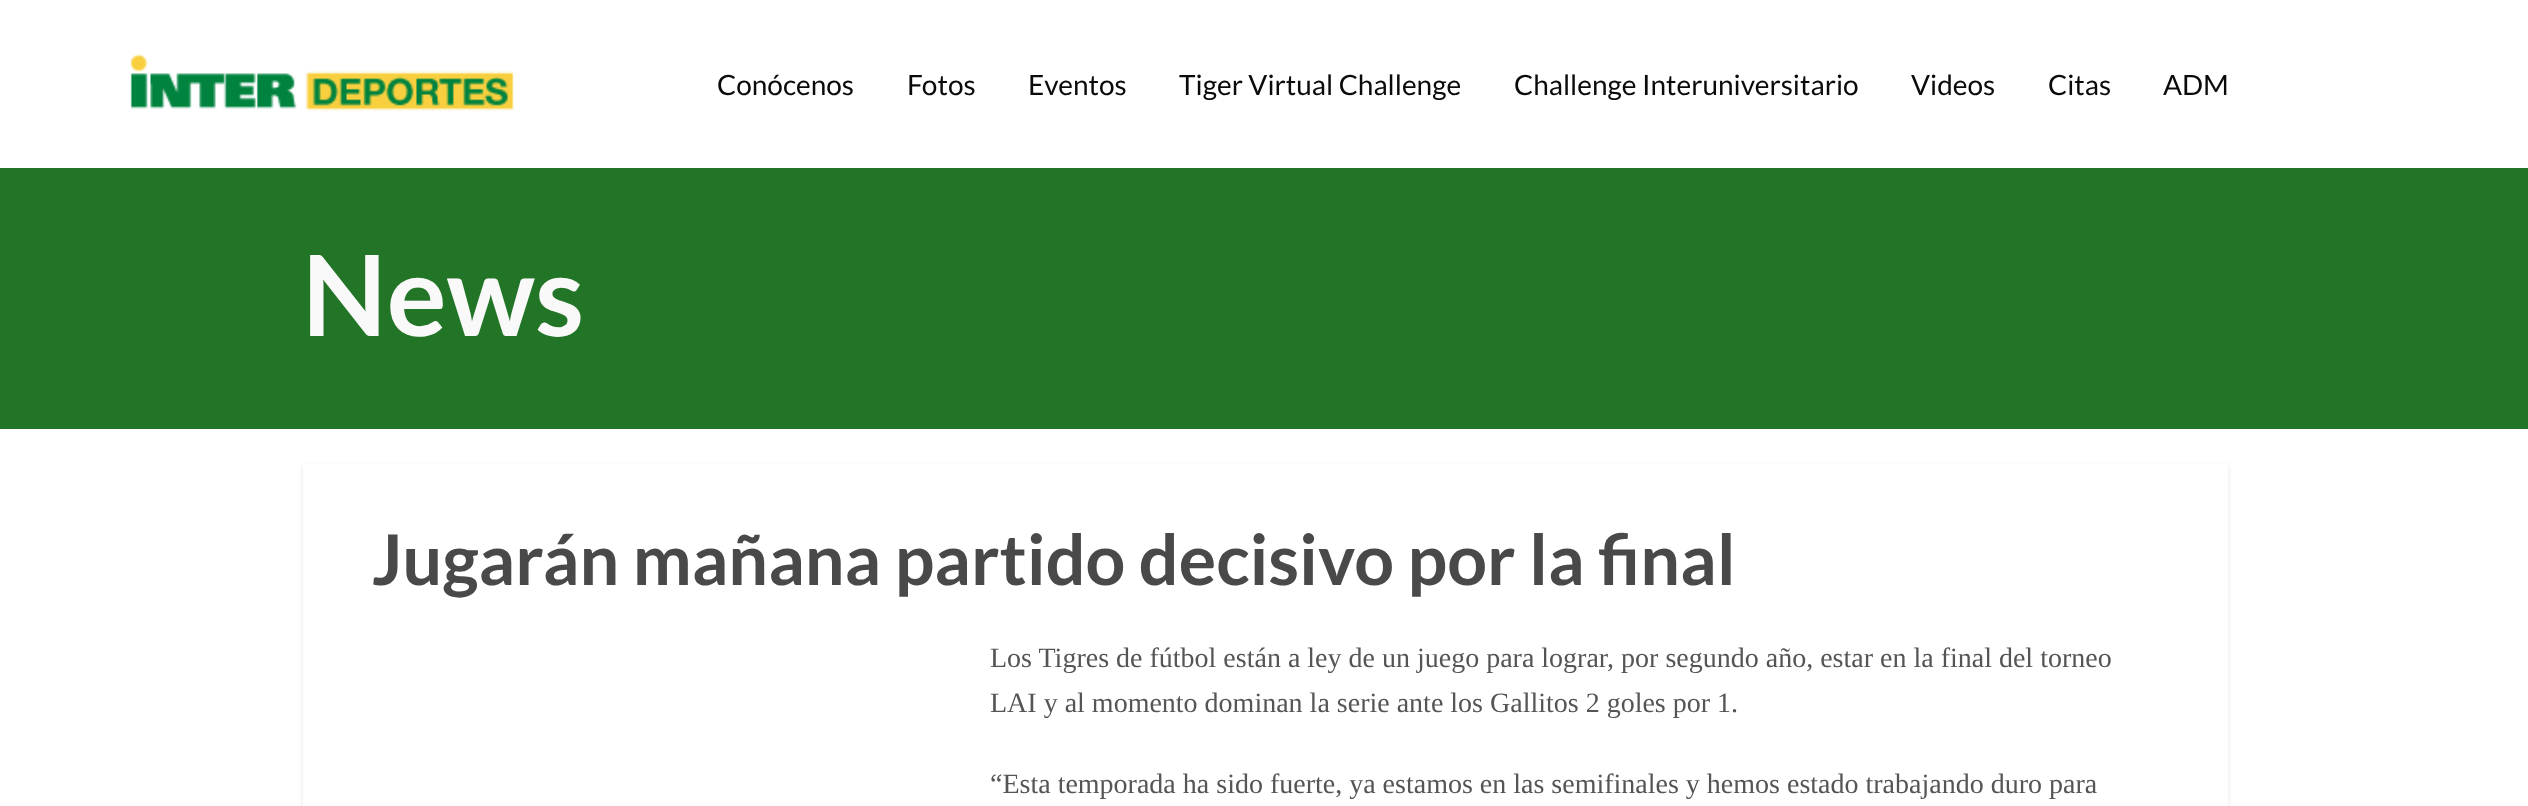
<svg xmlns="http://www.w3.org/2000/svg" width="2528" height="806">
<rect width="100%" height="100%" fill="#fff"/>
<image x="130" y="54" width="384" height="57" href="media/1.png"/>
<text x="717" y="95" style="font-family:Lato;font-size:28px;fill:#0a0a0a">Conócenos</text>
<text x="907" y="95" style="font-family:Lato;font-size:28px;fill:#0a0a0a">Fotos</text>
<text x="1028" y="95" style="font-family:Lato;font-size:28px;fill:#0a0a0a">Eventos</text>
<text x="1179" y="95" style="font-family:Lato;font-size:28px;fill:#0a0a0a">Tiger Virtual Challenge</text>
<text x="1514" y="95" style="font-family:Lato;font-size:28px;fill:#0a0a0a">Challenge Interuniversitario</text>
<text x="1911" y="95" style="font-family:Lato;font-size:28px;fill:#0a0a0a">Videos</text>
<text x="2048" y="95" style="font-family:Lato;font-size:28px;fill:#0a0a0a">Citas</text>
<text x="2163" y="95" style="font-family:Lato;font-size:28px;fill:#0a0a0a">ADM</text>
<rect y="168" width="2528" height="261" fill="#227526"/>
<text x="302" y="336" style="font-family:Lato;font-size:112px;font-weight:bold;fill:#f9f9f9">News</text>
<rect x="303" y="466" width="1925" height="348" fill="#0000001a" filter="blur(2.5px)"/>
<rect x="303" y="464" width="1925" height="342" fill="#fff"/>
<text x="372" y="585" style="font-family:Lato;font-size:70px;font-weight:bold;fill:#494949">Jugarán mañana partido decisivo por la final</text>
<text x="990" y="667" style="font-family:Liberation Serif;font-size:28px;fill:#555">Los Tigres de fútbol están a ley de un juego para lograr, por segundo año, estar en la final del torneo</text>
<text x="990" y="712" style="font-family:Liberation Serif;font-size:28px;fill:#555">LAI y al momento dominan la serie ante los Gallitos 2 goles por 1.</text>
<text x="990" y="793" style="font-family:Liberation Serif;font-size:28px;fill:#555">“Esta temporada ha sido fuerte, ya estamos en las semifinales y hemos estado trabajando duro para</text>
</svg>
